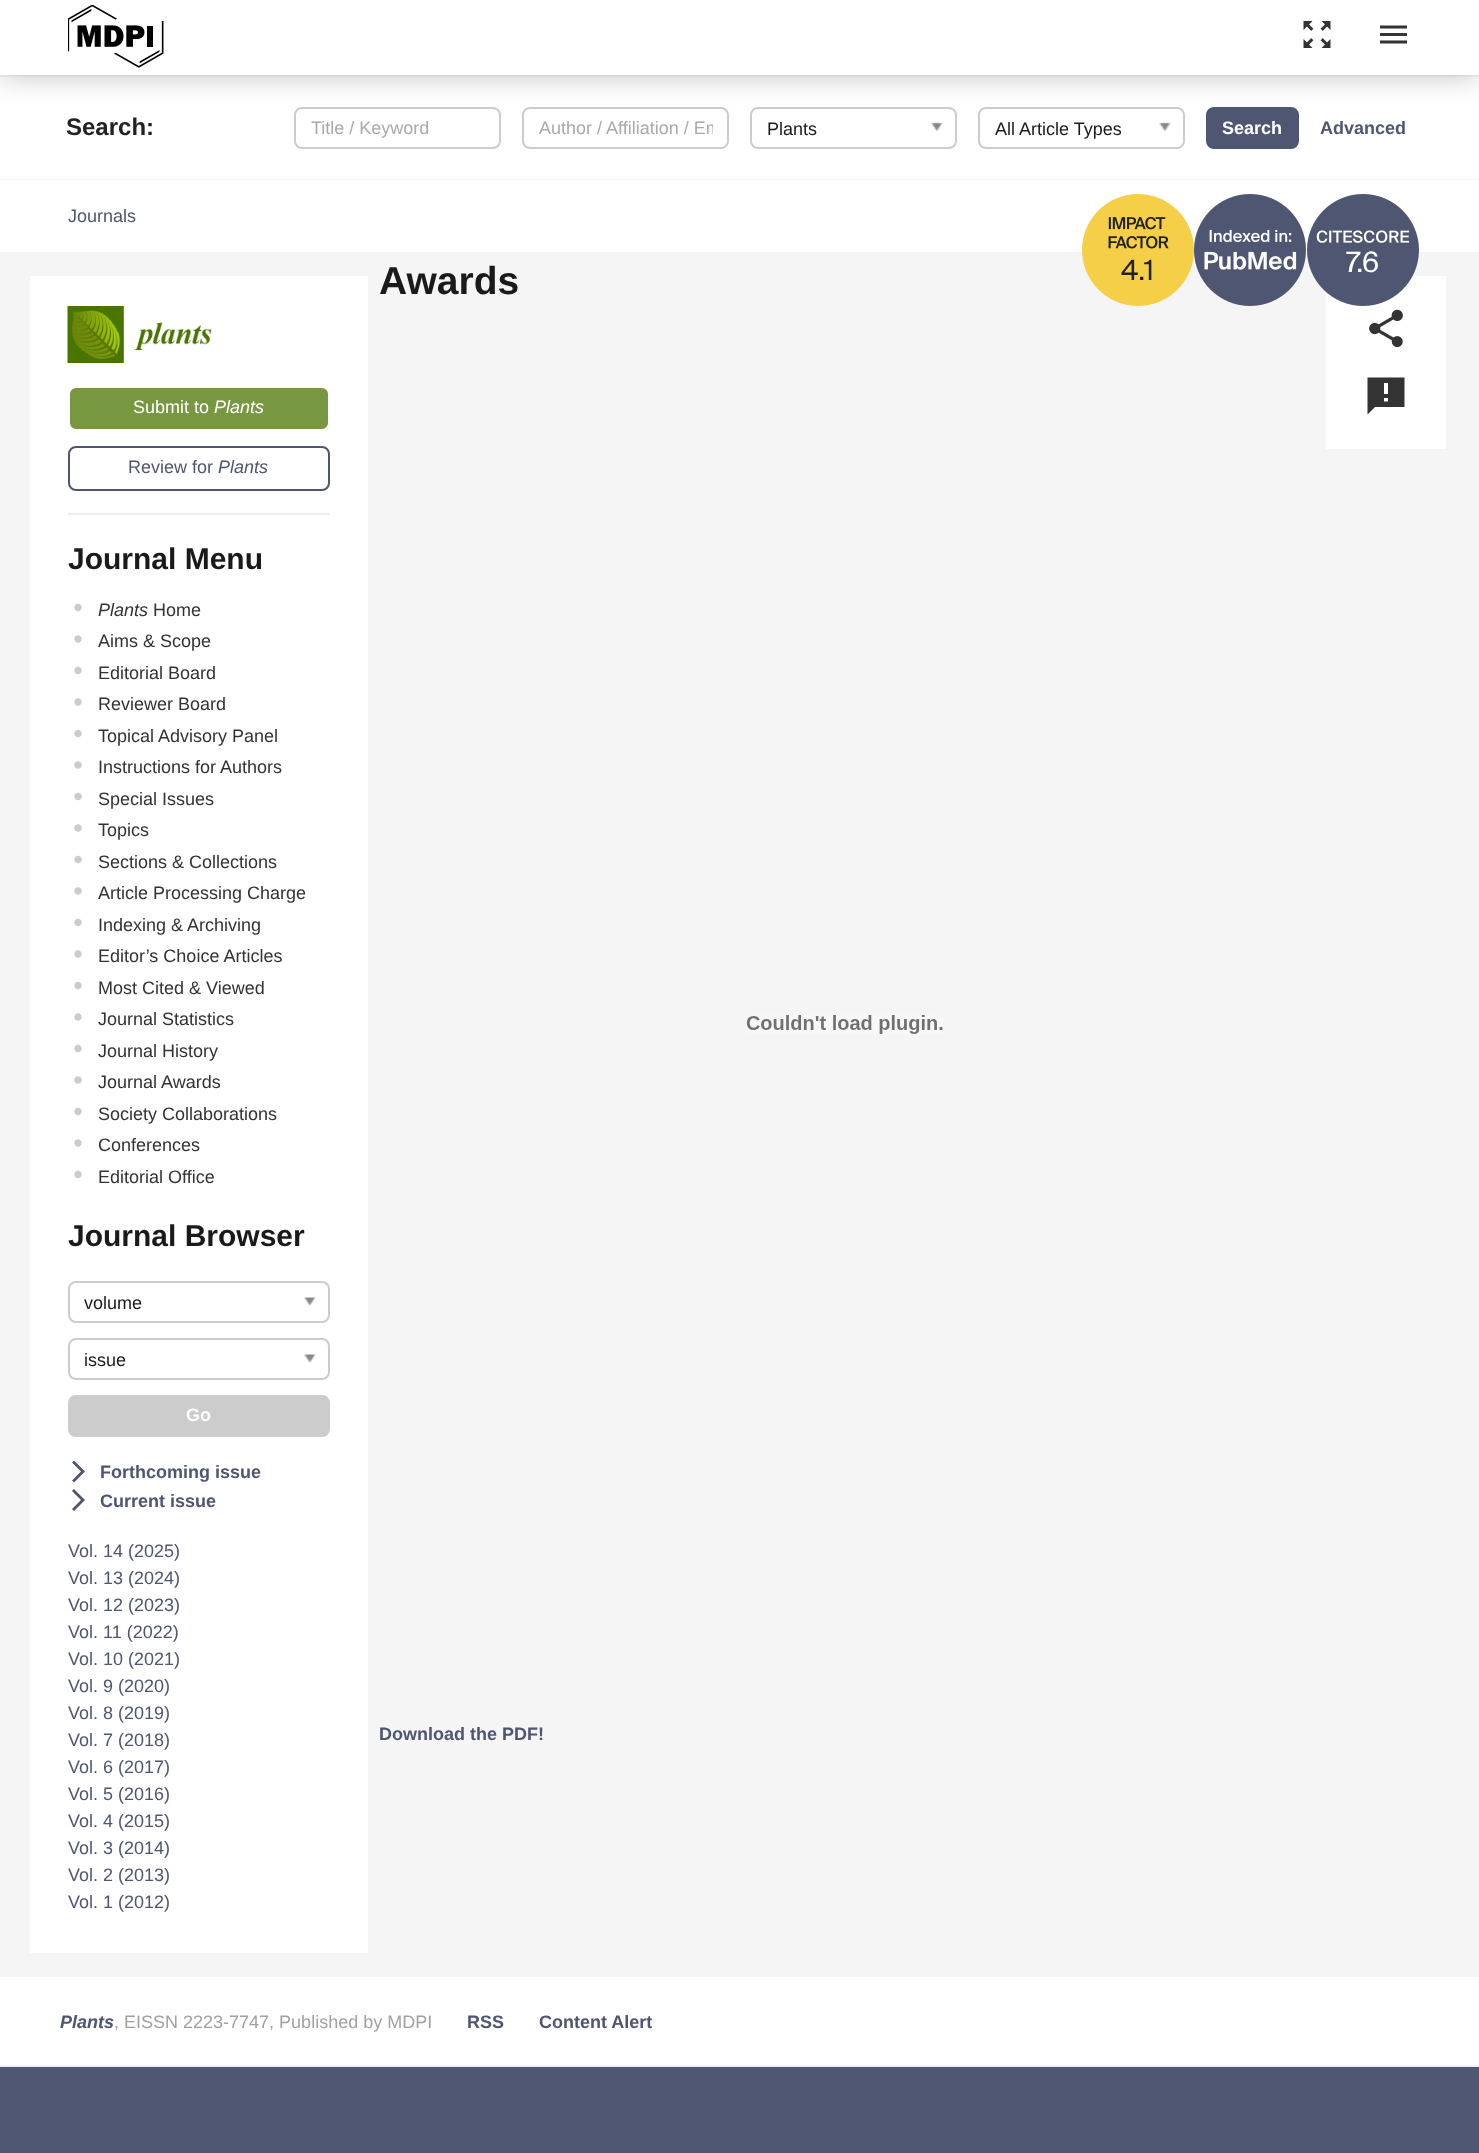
<svg xmlns="http://www.w3.org/2000/svg" width="1479" height="2153">
<defs>
<clipPath id="clip1"><rect x="539" y="117" width="174" height="21"/></clipPath>
</defs>
<rect width="100%" height="100%" fill="#f5f5f5"/>
<rect y="77" width="1479" height="102" fill="#fff"/>
<rect x="295" y="108" width="205" height="40" rx="7" fill="none" stroke="#ccc" stroke-width="2"/>
<rect x="523" y="108" width="205" height="40" rx="7" fill="none" stroke="#ccc" stroke-width="2"/>
<rect x="751" y="108" width="205" height="40" rx="7" fill="none" stroke="#ccc" stroke-width="2"/>
<rect x="979" y="108" width="205" height="40" rx="7" fill="none" stroke="#ccc" stroke-width="2"/>
<rect x="1207" y="108" width="91" height="40" rx="7" fill="#4f5671" stroke="#4f5671" stroke-width="2"/>
<rect width="1479" height="75" fill="#00000040" filter="blur(15px)"/>
<rect width="1479" height="75" fill="#fff"/>
<image x="68" y="5" width="96" height="63" href="media/1.png"/>
<image x="1303" y="21" width="28" height="27" href="media/2.png"/>
<image x="1380" y="25" width="27" height="19" href="media/3.png"/>
<text x="66" y="135" style="font-family:Liberation Sans;font-size:24px;font-weight:bold;fill:#222">Search:</text>
<text x="311" y="134" style="font-family:Liberation Sans;font-size:18px;fill:#aaa">Title / Keyword</text>
<g clip-path="url(#clip1)">
<text x="539" y="134" style="font-family:Liberation Sans;font-size:18px;fill:#aaa">Author / Affiliation / Em</text>
</g>
<text x="767" y="135" style="font-family:Liberation Sans;font-size:18px;fill:#1a1a1a">Plants</text>
<image x="931" y="122" width="12" height="9" href="media/4.png"/>
<text x="995" y="135" style="font-family:Liberation Sans;font-size:18px;fill:#1a1a1a">All Article Types</text>
<image x="1159" y="122" width="12" height="9" href="media/5.png"/>
<text x="1222" y="134" style="font-family:Liberation Sans;font-size:18px;font-weight:bold;fill:#fff">Search</text>
<text x="1320" y="134" style="font-family:Liberation Sans;font-size:18px;font-weight:bold;fill:#4f5671">Advanced</text>
<rect y="180" width="1479" height="72" fill="#fff"/>
<text x="68" y="222" style="font-family:Liberation Sans;font-size:18px;fill:#4f5671">Journals</text>
<image x="1082" y="194" width="112" height="112" href="media/6.png"/>
<text x="1121" y="280" style="font-family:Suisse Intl;font-size:28px;fill:#222">4.1</text>
<image x="1194" y="194" width="112" height="112" href="media/7.png"/>
<rect x="1326" y="276" width="120" height="173" fill="#fff"/>
<image x="1307" y="194" width="112" height="112" href="media/8.png"/>
<text x="1346" y="272" style="font-family:Suisse Intl;font-size:28px;fill:#fff">7.6</text>
<rect x="30" y="276" width="338" height="1677" fill="#fff"/>
<image x="67" y="306" width="145" height="57" href="media/9.png"/>
<rect x="69" y="387" width="260" height="43" rx="7" fill="#779740" stroke="#fff" stroke-width="2"/>
<text x="133" y="413" style="font-family:Liberation Sans;font-size:18px;fill:#fff">Submit to</text>
<text x="214" y="413" style="font-family:Liberation Sans;font-size:18px;font-style:italic;fill:#fff">Plants</text>
<rect x="69" y="447" width="260" height="43" rx="7" fill="none" stroke="#4f5671" stroke-width="2"/>
<text x="128" y="473" style="font-family:Liberation Sans;font-size:18px;fill:#4f5671">Review for</text>
<text x="218" y="473" style="font-family:Liberation Sans;font-size:18px;font-style:italic;fill:#4f5671">Plants</text>
<rect x="68" y="513" width="262" height="2" fill="#ededed"/>
<text x="68" y="569" style="font-family:Liberation Sans;font-size:30px;font-weight:bold;fill:#1a1a1a">Journal Menu</text>
<image x="74" y="603" width="8" height="9" href="media/10.png"/>
<text x="98" y="616" style="font-family:Liberation Sans;font-size:18px;font-style:italic;fill:#333">Plants</text>
<text x="153" y="616" style="font-family:Liberation Sans;font-size:18px;fill:#333">Home</text>
<image x="74" y="635" width="8" height="8" href="media/11.png"/>
<text x="98" y="647" style="font-family:Liberation Sans;font-size:18px;fill:#333">Aims &amp; Scope</text>
<image x="74" y="666" width="8" height="9" href="media/10.png"/>
<text x="98" y="679" style="font-family:Liberation Sans;font-size:18px;fill:#333">Editorial Board</text>
<image x="74" y="698" width="8" height="8" href="media/11.png"/>
<text x="98" y="710" style="font-family:Liberation Sans;font-size:18px;fill:#333">Reviewer Board</text>
<image x="74" y="729" width="8" height="9" href="media/10.png"/>
<text x="98" y="742" style="font-family:Liberation Sans;font-size:18px;fill:#333">Topical Advisory Panel</text>
<image x="74" y="761" width="8" height="8" href="media/11.png"/>
<text x="98" y="773" style="font-family:Liberation Sans;font-size:18px;fill:#333">Instructions for Authors</text>
<image x="74" y="792" width="8" height="9" href="media/10.png"/>
<text x="98" y="805" style="font-family:Liberation Sans;font-size:18px;fill:#333">Special Issues</text>
<image x="74" y="824" width="8" height="8" href="media/11.png"/>
<text x="98" y="836" style="font-family:Liberation Sans;font-size:18px;fill:#333">Topics</text>
<image x="74" y="855" width="8" height="9" href="media/10.png"/>
<text x="98" y="868" style="font-family:Liberation Sans;font-size:18px;fill:#333">Sections &amp; Collections</text>
<image x="74" y="887" width="8" height="8" href="media/11.png"/>
<text x="98" y="899" style="font-family:Liberation Sans;font-size:18px;fill:#333">Article Processing Charge</text>
<image x="74" y="918" width="8" height="9" href="media/10.png"/>
<text x="98" y="931" style="font-family:Liberation Sans;font-size:18px;fill:#333">Indexing &amp; Archiving</text>
<image x="74" y="950" width="8" height="8" href="media/11.png"/>
<text x="98" y="962" style="font-family:Liberation Sans;font-size:18px;fill:#333">Editor’s Choice Articles</text>
<image x="74" y="981" width="8" height="9" href="media/10.png"/>
<text x="98" y="994" style="font-family:Liberation Sans;font-size:18px;fill:#333">Most Cited &amp; Viewed</text>
<image x="74" y="1013" width="8" height="8" href="media/11.png"/>
<text x="98" y="1025" style="font-family:Liberation Sans;font-size:18px;fill:#333">Journal Statistics</text>
<image x="74" y="1044" width="8" height="9" href="media/10.png"/>
<text x="98" y="1057" style="font-family:Liberation Sans;font-size:18px;fill:#333">Journal History</text>
<image x="74" y="1076" width="8" height="8" href="media/11.png"/>
<text x="98" y="1088" style="font-family:Liberation Sans;font-size:18px;fill:#333">Journal Awards</text>
<image x="74" y="1107" width="8" height="9" href="media/10.png"/>
<text x="98" y="1120" style="font-family:Liberation Sans;font-size:18px;fill:#333">Society Collaborations</text>
<image x="74" y="1139" width="8" height="8" href="media/11.png"/>
<text x="98" y="1151" style="font-family:Liberation Sans;font-size:18px;fill:#333">Conferences</text>
<image x="74" y="1170" width="8" height="9" href="media/10.png"/>
<text x="98" y="1183" style="font-family:Liberation Sans;font-size:18px;fill:#333">Editorial Office</text>
<text x="68" y="1246" style="font-family:Liberation Sans;font-size:30px;font-weight:bold;fill:#1a1a1a">Journal Browser</text>
<rect x="69" y="1282" width="260" height="40" rx="7" fill="none" stroke="#ccc" stroke-width="2"/>
<text x="84" y="1309" style="font-family:Liberation Sans;font-size:18px;fill:#1a1a1a">volume</text>
<image x="304" y="1297" width="12" height="9" href="media/12.png"/>
<rect x="69" y="1339" width="260" height="40" rx="7" fill="none" stroke="#ccc" stroke-width="2"/>
<text x="84" y="1366" style="font-family:Liberation Sans;font-size:18px;fill:#1a1a1a">issue</text>
<image x="304" y="1354" width="12" height="9" href="media/12.png"/>
<rect x="69" y="1396" width="260" height="40" rx="7" fill="#ccc" stroke="#ccc" stroke-width="2"/>
<text x="186" y="1421" style="font-family:Liberation Sans;font-size:18px;font-weight:bold;fill:#fff">Go</text>
<path d="M72 1480.5l2 2l11-11l-11-11l-2 2l9 9zm0 28.5l2 2l11-11l-11-11l-2 2l9 9z" fill="#4f5671"/>
<text x="100" y="1478" style="font-family:Liberation Sans;font-size:18px;font-weight:bold;fill:#4f5671">Forthcoming issue</text>
<text x="100" y="1507" style="font-family:Liberation Sans;font-size:18px;font-weight:bold;fill:#4f5671">Current issue</text>
<text x="68" y="1557" style="font-family:Liberation Sans;font-size:18px;fill:#4f5671">Vol. 14 (2025)</text>
<text x="68" y="1584" style="font-family:Liberation Sans;font-size:18px;fill:#4f5671">Vol. 13 (2024)</text>
<text x="68" y="1611" style="font-family:Liberation Sans;font-size:18px;fill:#4f5671">Vol. 12 (2023)</text>
<text x="68" y="1638" style="font-family:Liberation Sans;font-size:18px;fill:#4f5671">Vol. 11 (2022)</text>
<text x="68" y="1665" style="font-family:Liberation Sans;font-size:18px;fill:#4f5671">Vol. 10 (2021)</text>
<text x="68" y="1692" style="font-family:Liberation Sans;font-size:18px;fill:#4f5671">Vol. 9 (2020)</text>
<text x="68" y="1719" style="font-family:Liberation Sans;font-size:18px;fill:#4f5671">Vol. 8 (2019)</text>
<text x="68" y="1746" style="font-family:Liberation Sans;font-size:18px;fill:#4f5671">Vol. 7 (2018)</text>
<text x="68" y="1773" style="font-family:Liberation Sans;font-size:18px;fill:#4f5671">Vol. 6 (2017)</text>
<text x="68" y="1800" style="font-family:Liberation Sans;font-size:18px;fill:#4f5671">Vol. 5 (2016)</text>
<text x="68" y="1827" style="font-family:Liberation Sans;font-size:18px;fill:#4f5671">Vol. 4 (2015)</text>
<text x="68" y="1854" style="font-family:Liberation Sans;font-size:18px;fill:#4f5671">Vol. 3 (2014)</text>
<text x="68" y="1881" style="font-family:Liberation Sans;font-size:18px;fill:#4f5671">Vol. 2 (2013)</text>
<text x="68" y="1908" style="font-family:Liberation Sans;font-size:18px;fill:#4f5671">Vol. 1 (2012)</text>
<text x="379" y="294" style="font-family:Liberation Sans;font-size:39px;font-weight:bold;fill:#1a1a1a">Awards</text>
<image x="746" y="1015" width="197" height="19" href="media/13.png"/>
<text x="379" y="1740" style="font-family:Liberation Sans;font-size:18px;font-weight:bold;fill:#4f5671">Download the PDF!</text>
<image x="1369" y="309" width="34" height="39" href="media/14.png"/>
<path d="M1404.5 377.5h-37v37l7.5-7.5h29.5zm-16.5 16.5h-4v-11h4zm0 7.5h-4v-3.5h4z" fill="#333"/>
<rect y="1977" width="1479" height="90" fill="#fff"/>
<text x="60" y="2028" style="font-family:Liberation Sans;font-size:18px;font-weight:bold;font-style:italic;fill:#4f5671">Plants</text>
<text x="114" y="2028" style="font-family:Liberation Sans;font-size:18px;fill:#a1a1a1">, EISSN 2223-7747, Published by MDPI</text>
<text x="467" y="2028" style="font-family:Liberation Sans;font-size:18px;font-weight:bold;fill:#4f5671">RSS</text>
<text x="539" y="2028" style="font-family:Liberation Sans;font-size:18px;font-weight:bold;fill:#4f5671">Content Alert</text>
<rect x="-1" y="2066" width="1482" height="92" fill="#cccccc80" filter="blur(1.5px)"/>
<rect y="2067" width="1479" height="86" fill="#4f5671"/>
</svg>
